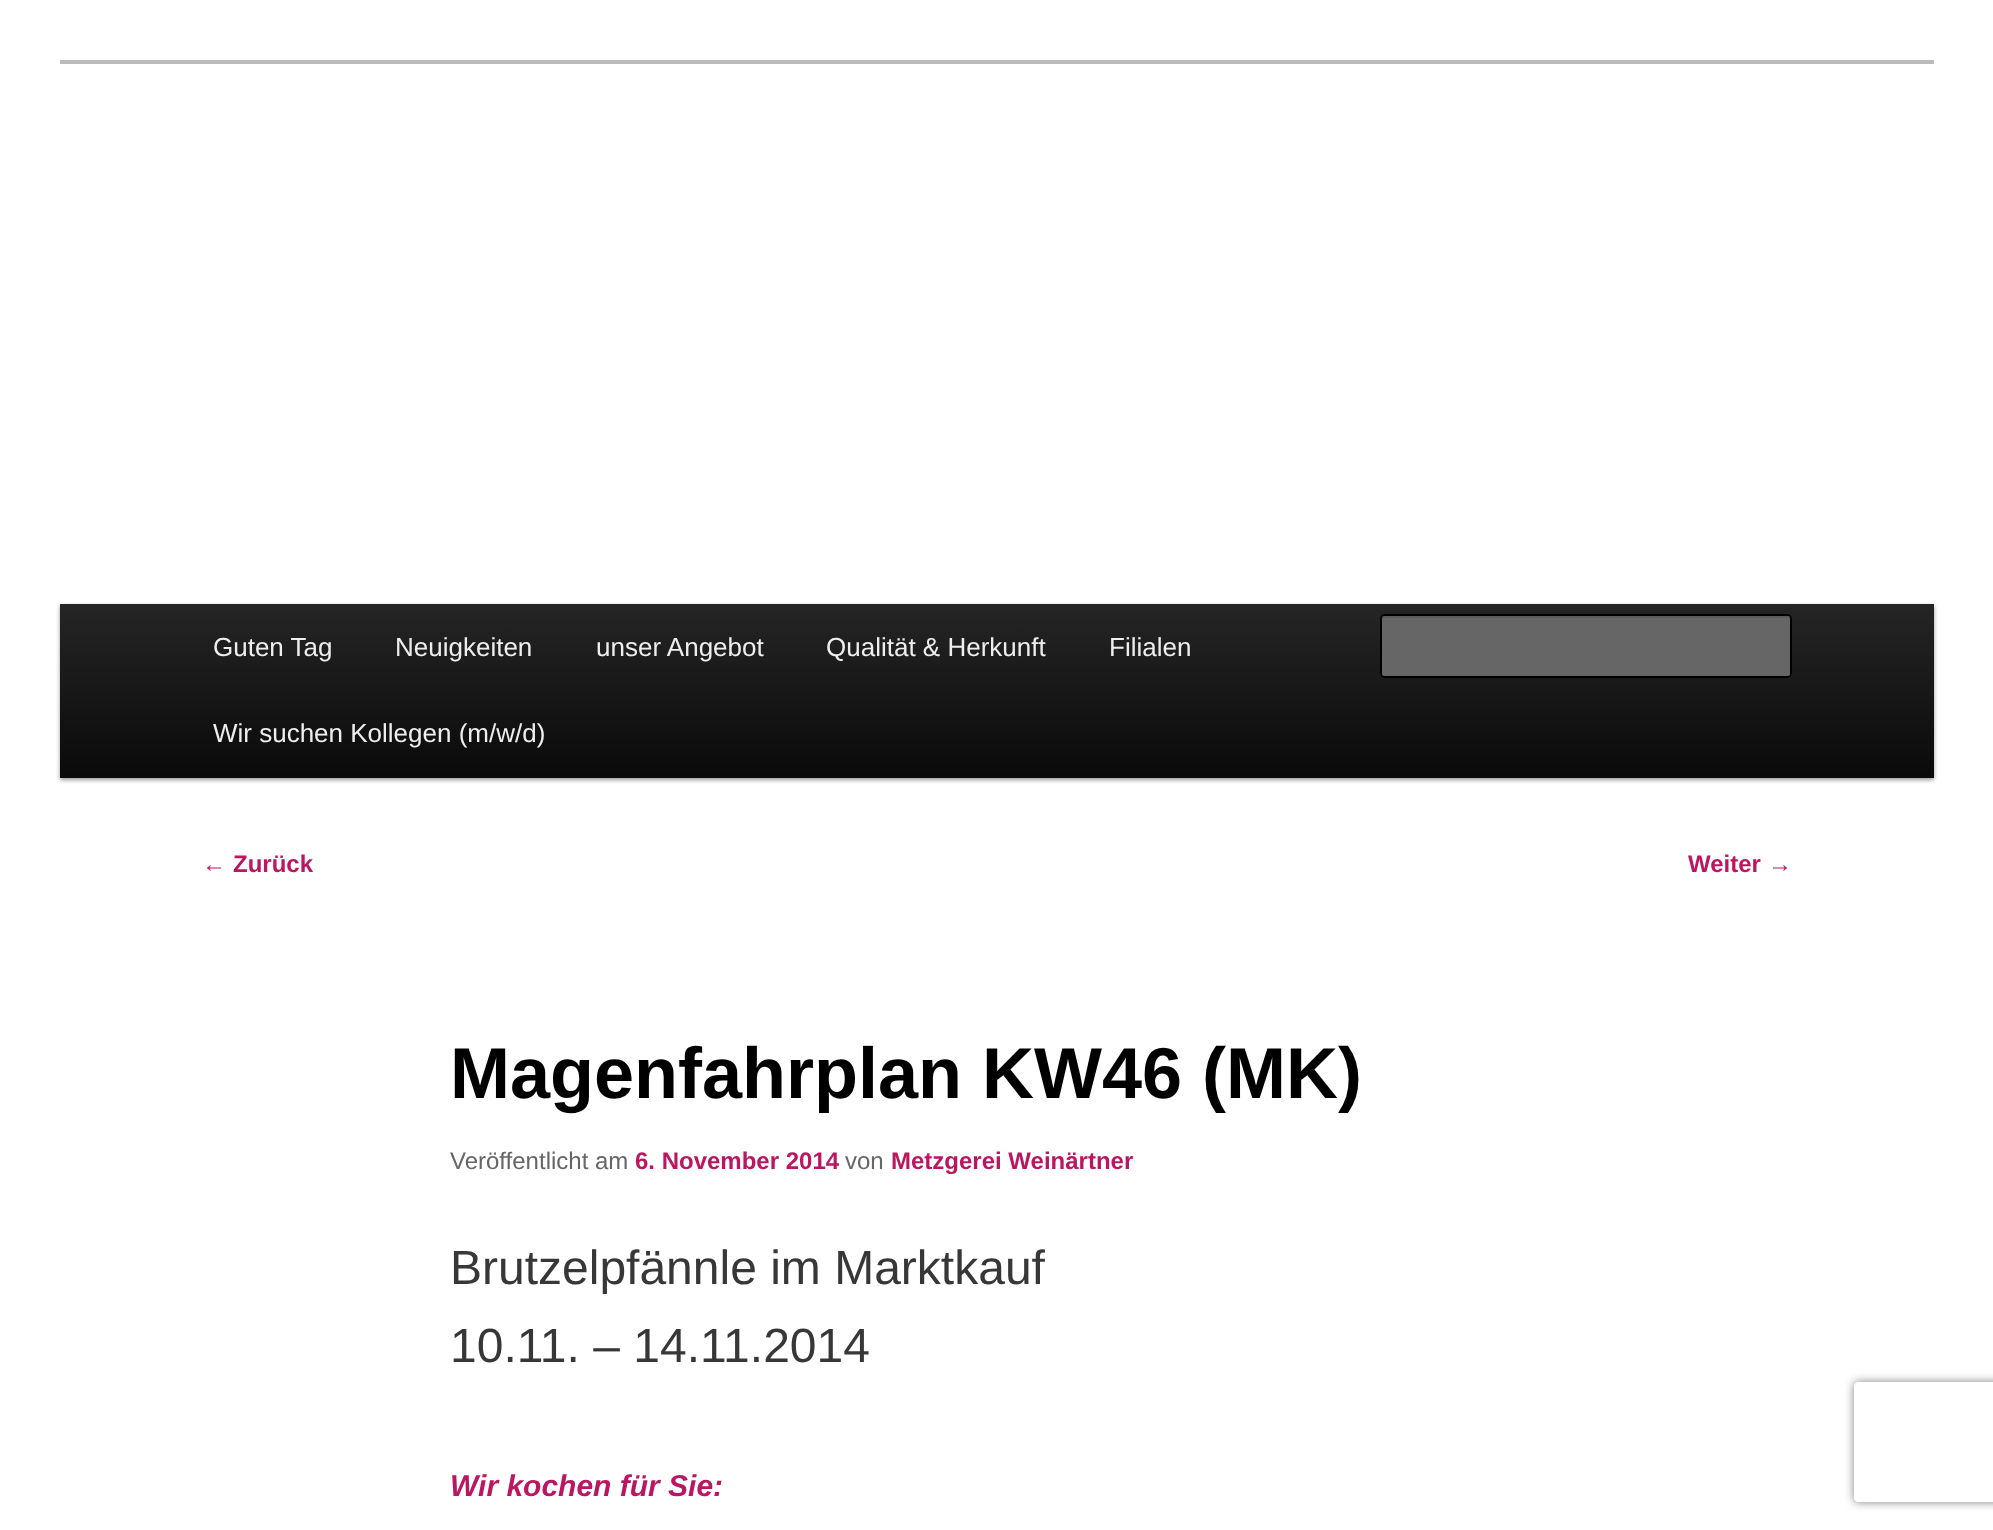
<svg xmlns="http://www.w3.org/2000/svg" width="1993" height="1530">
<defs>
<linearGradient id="g1" gradientUnits="userSpaceOnUse" x1="997" y1="604" x2="997" y2="778"><stop offset="0" stop-color="#252525"/><stop offset="1" stop-color="#0a0a0a"/></linearGradient>
<clipPath id="clip1"><path d="M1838 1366h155v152h-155zm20 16h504c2 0 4 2 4 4v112c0 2-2 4-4 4h-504c-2 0-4-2-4-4v-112c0-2 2-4 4-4z" clip-rule="evenodd"/></clipPath>
</defs>
<rect width="100%" height="100%" fill="#fff"/>
<rect x="60" y="60" width="1874" height="4" fill="#bbb"/>
<rect x="60" y="606" width="1874" height="174" fill="#00000066" filter="blur(2px)"/>
<rect x="60" y="604" width="1874" height="174" fill="url(#g1)"/>
<text x="213" y="656" style="font-family:Liberation Sans;font-size:26px;fill:#eee">Guten Tag</text>
<text x="395" y="656" style="font-family:Liberation Sans;font-size:26px;fill:#eee">Neuigkeiten</text>
<text x="596" y="656" style="font-family:Liberation Sans;font-size:26px;fill:#eee">unser Angebot</text>
<text x="826" y="656" style="font-family:Liberation Sans;font-size:26px;fill:#eee">Qualität &amp; Herkunft</text>
<text x="1109" y="656" style="font-family:Liberation Sans;font-size:26px;fill:#eee">Filialen</text>
<text x="213" y="742" style="font-family:Liberation Sans;font-size:26px;fill:#eee">Wir suchen Kollegen (m/w/d)</text>
<rect x="1380" y="614" width="412" height="64" rx="4" fill="#666"/>
<path d="M1384 618h404c1 0 2 1 2 2v-3l-2-1h-404c-2 0-2 2-2 4c0-1 1-2 2-2z" fill="#5c5c5c"/>
<rect x="1381" y="615" width="410" height="62" rx="3" fill="none" stroke="#000" stroke-width="2"/>
<text x="202" y="872" style="font-family:Liberation Sans;font-size:24px;fill:#bb1661">←</text>
<text x="233" y="872" style="font-family:Liberation Sans;font-size:24px;font-weight:bold;fill:#bb1661">Zurück</text>
<text x="1688" y="872" style="font-family:Liberation Sans;font-size:24px;font-weight:bold;fill:#bb1661">Weiter</text>
<text x="1768" y="872" style="font-family:Liberation Sans;font-size:24px;fill:#bb1661">→</text>
<text x="450" y="1098" style="font-family:Liberation Sans;font-size:72px;font-weight:bold;fill:#000">Magenfahrplan KW46 (MK)</text>
<text x="450" y="1169" style="font-family:Liberation Sans;font-size:24px;fill:#666">Veröffentlicht am</text>
<text x="635" y="1169" style="font-family:Liberation Sans;font-size:24px;font-weight:bold;fill:#bb1661">6. November 2014</text>
<text x="845" y="1169" style="font-family:Liberation Sans;font-size:24px;fill:#666">von</text>
<text x="891" y="1169" style="font-family:Liberation Sans;font-size:24px;font-weight:bold;fill:#bb1661">Metzgerei Weinärtner</text>
<text x="450" y="1284" style="font-family:Liberation Sans;font-size:48px;fill:#373737">Brutzelpfännle im Marktkauf</text>
<text x="450" y="1362" style="font-family:Liberation Sans;font-size:48px;fill:#373737">10.11. – 14.11.2014</text>
<text x="450" y="1496" style="font-family:Liberation Sans;font-size:30px;font-weight:bold;font-style:italic;fill:#bb1661">Wir kochen für Sie:</text>
<g clip-path="url(#clip1)">
<rect x="1854" y="1382" width="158" height="120" rx="4" fill="#808080" filter="blur(5px)"/>
</g>
</svg>
